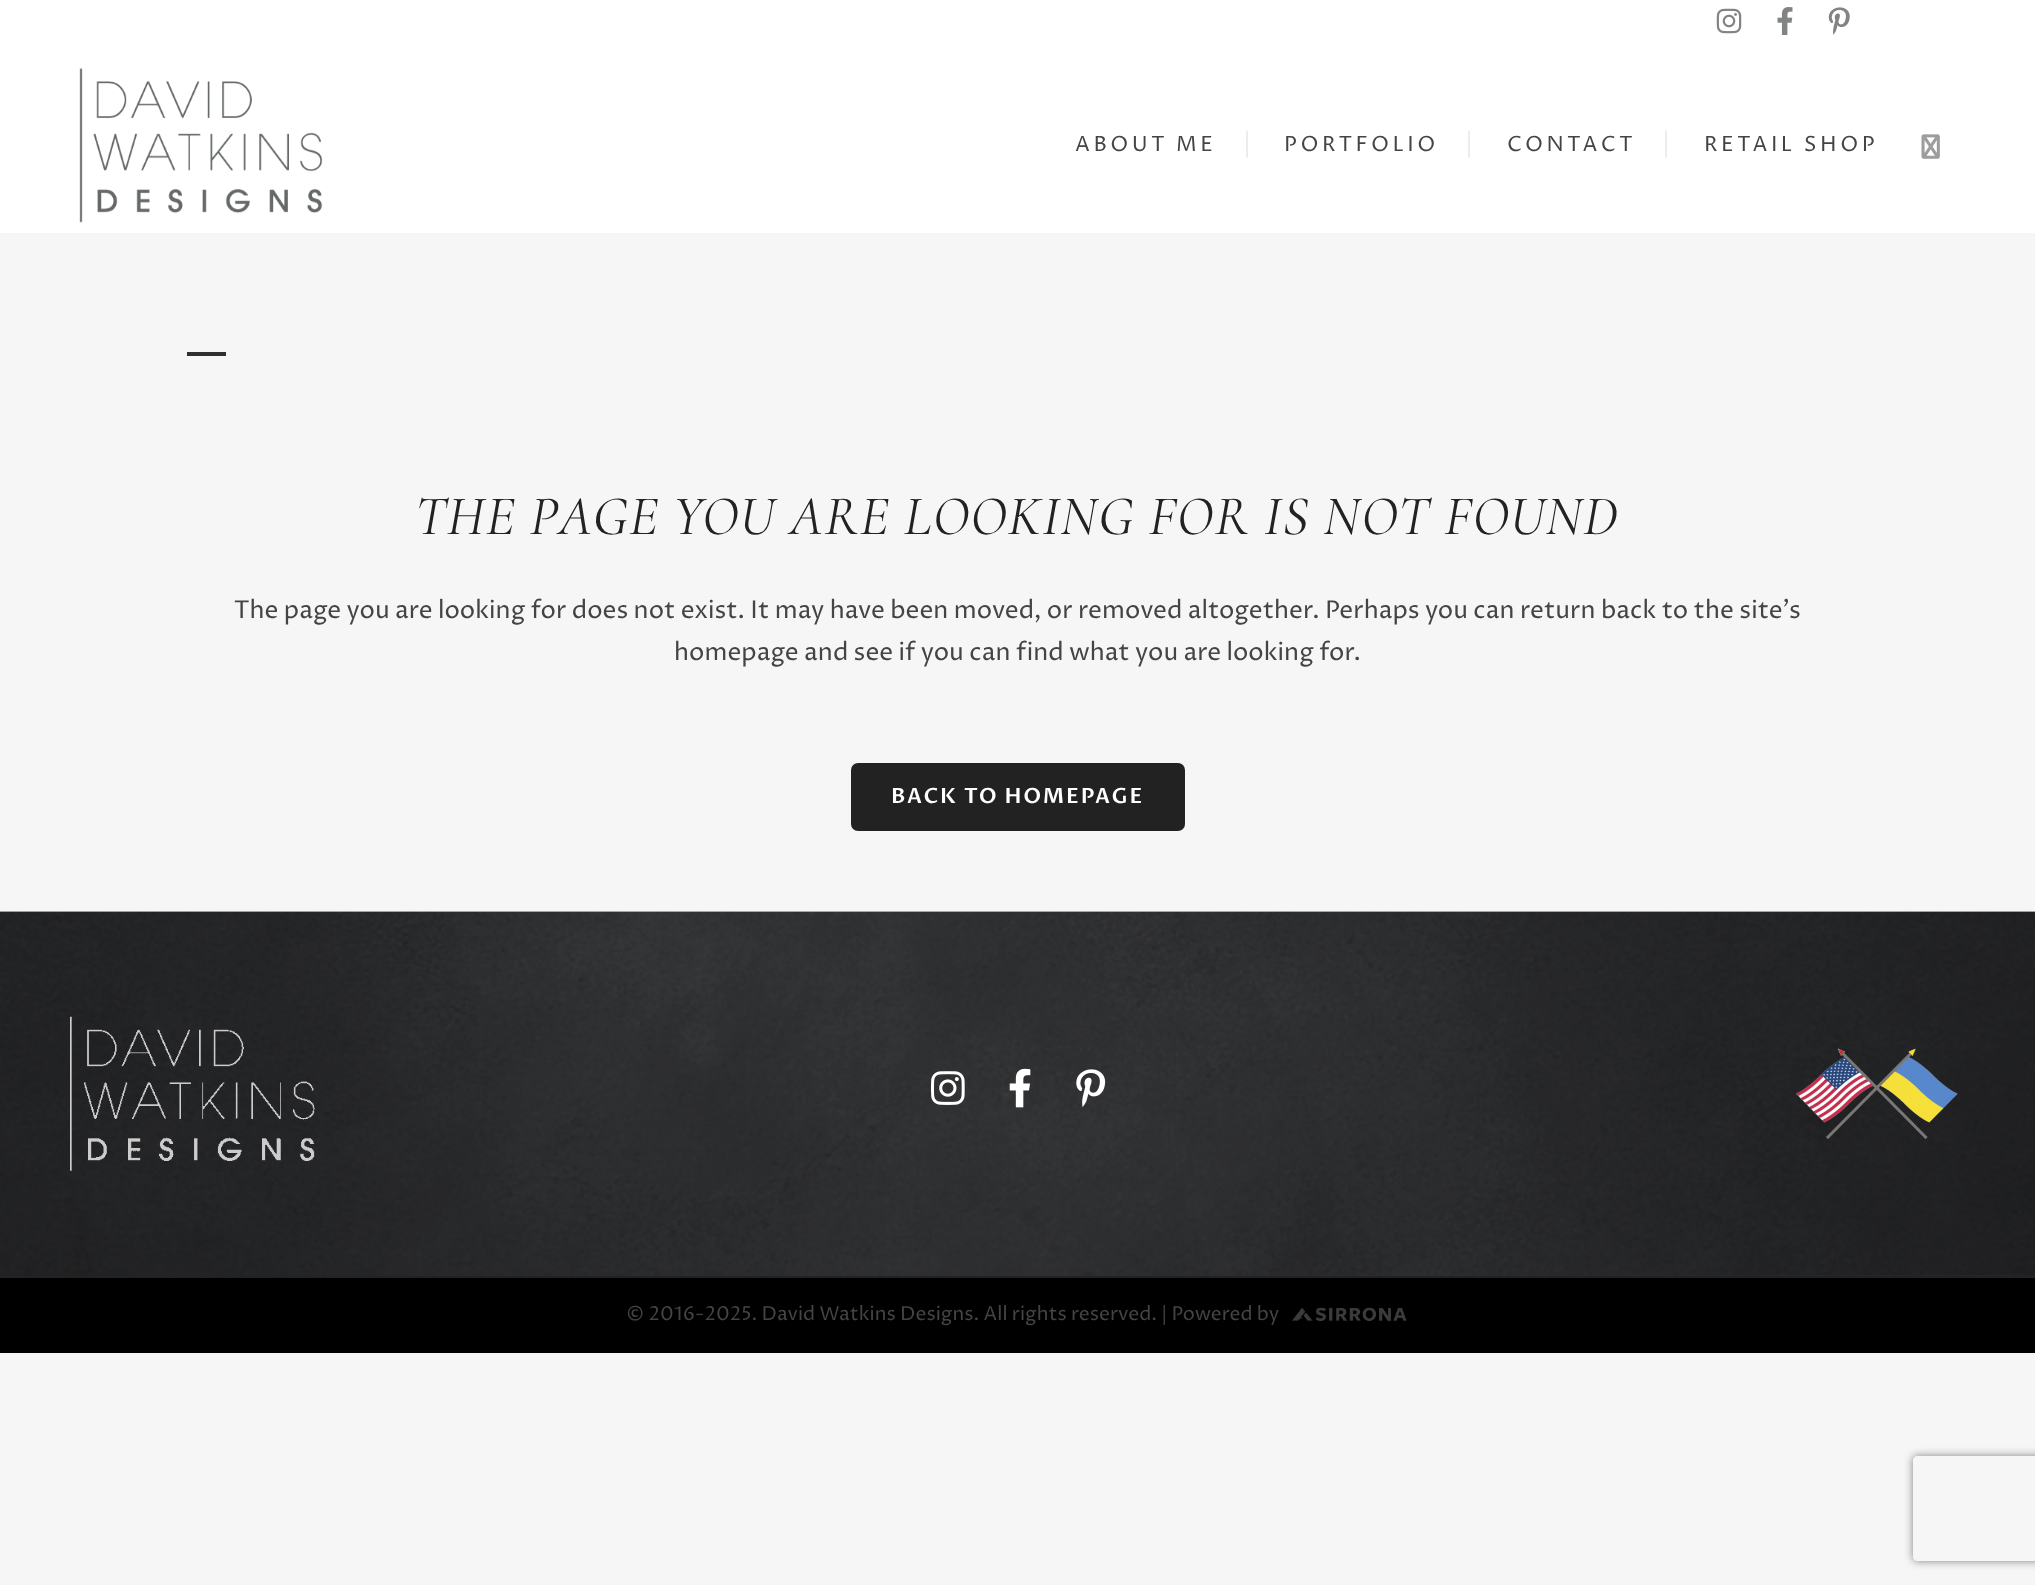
<svg xmlns="http://www.w3.org/2000/svg" width="2035" height="1585">
<defs>
<clipPath id="clip1"><path d="M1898 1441h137v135h-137zm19 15h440c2 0 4 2 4 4v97c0 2-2 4-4 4h-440c-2 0-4-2-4-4v-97c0-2 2-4 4-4z" clip-rule="evenodd"/></clipPath>
</defs>
<rect width="100%" height="100%" fill="#f6f6f6"/>
<rect width="2035" height="233" fill="#fff"/>
<image x="1716" y="8" width="26" height="26" href="media/1.png"/>
<image x="1777" y="7" width="16" height="28" href="media/2.png"/>
<image x="1828" y="7" width="22" height="28" href="media/3.png"/>
<image x="79" y="68" width="244" height="155" href="media/4.png"/>
<text x="1075" y="151" style="font-family:Proza Libre;font-size:21px;letter-spacing:3.5px;fill:#444">ABOUT ME</text>
<text x="1243" y="151" style="font-family:Proza Libre;font-size:26px;fill:#eaeaea">|</text>
<text x="1284" y="151" style="font-family:Proza Libre;font-size:21px;letter-spacing:3.5px;fill:#444">PORTFOLIO</text>
<text x="1465" y="151" style="font-family:Proza Libre;font-size:26px;fill:#eaeaea">|</text>
<text x="1507" y="151" style="font-family:Proza Libre;font-size:21px;letter-spacing:3.5px;fill:#444">CONTACT</text>
<text x="1662" y="151" style="font-family:Proza Libre;font-size:26px;fill:#eaeaea">|</text>
<text x="1704" y="151" style="font-family:Proza Libre;font-size:21px;letter-spacing:3.5px;fill:#444">RETAIL SHOP</text>
<image x="1921" y="134" width="19" height="25" href="media/5.png"/>
<rect x="187" y="352" width="39" height="4" fill="#303030"/>
<text x="415" y="534" style="font-family:Cormorant Garamond;font-size:56px;font-weight:300;font-style:italic;letter-spacing:1.1px;fill:#222">THE PAGE YOU ARE LOOKING FOR IS NOT FOUND</text>
<text x="234" y="618" style="font-family:Proza Libre;font-size:24.5px;fill:#444">The page you are looking for does not exist. It may have been moved, or removed altogether. Perhaps you can return back to the site's</text>
<text x="674" y="660" style="font-family:Proza Libre;font-size:24.5px;fill:#444">homepage and see if you can find what you are looking for.</text>
<rect x="851" y="763" width="334" height="68" rx="7" fill="#222"/>
<text x="891" y="803" style="font-family:Proza Libre;font-size:21px;font-weight:600;letter-spacing:1.75px;fill:#fff">BACK TO HOMEPAGE</text>
<image x="0" y="911" width="2035" height="365" href="media/6.png"/>
<image x="0" y="911" width="2035" height="365" href="media/7.png"/>
<rect y="912" width="2035" height="364" fill="#0000004d"/>
<image x="70" y="1016" width="245" height="155" href="media/8.png"/>
<image x="931" y="1071" width="34" height="34" href="media/9.png"/>
<image x="1009" y="1068" width="22" height="40" href="media/10.png"/>
<image x="1076" y="1069" width="30" height="38" href="media/11.png"/>
<image x="1796" y="1048" width="162" height="91" href="media/12.png"/>
<rect y="1278" width="2035" height="75" fill="#000"/>
<rect y="1276" width="2035" height="2" fill="#222"/>
<text x="626" y="1320" style="font-family:Proza Libre;font-size:19.25px;fill:#444">© 2016-2025. David Watkins Designs. All rights reserved. | Powered by</text>
<image x="1292" y="1307" width="115" height="14" href="media/13.png"/>
<g clip-path="url(#clip1)">
<rect x="1913" y="1456" width="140" height="105" rx="4" fill="#808080" filter="blur(4.5px)"/>
</g>
</svg>
